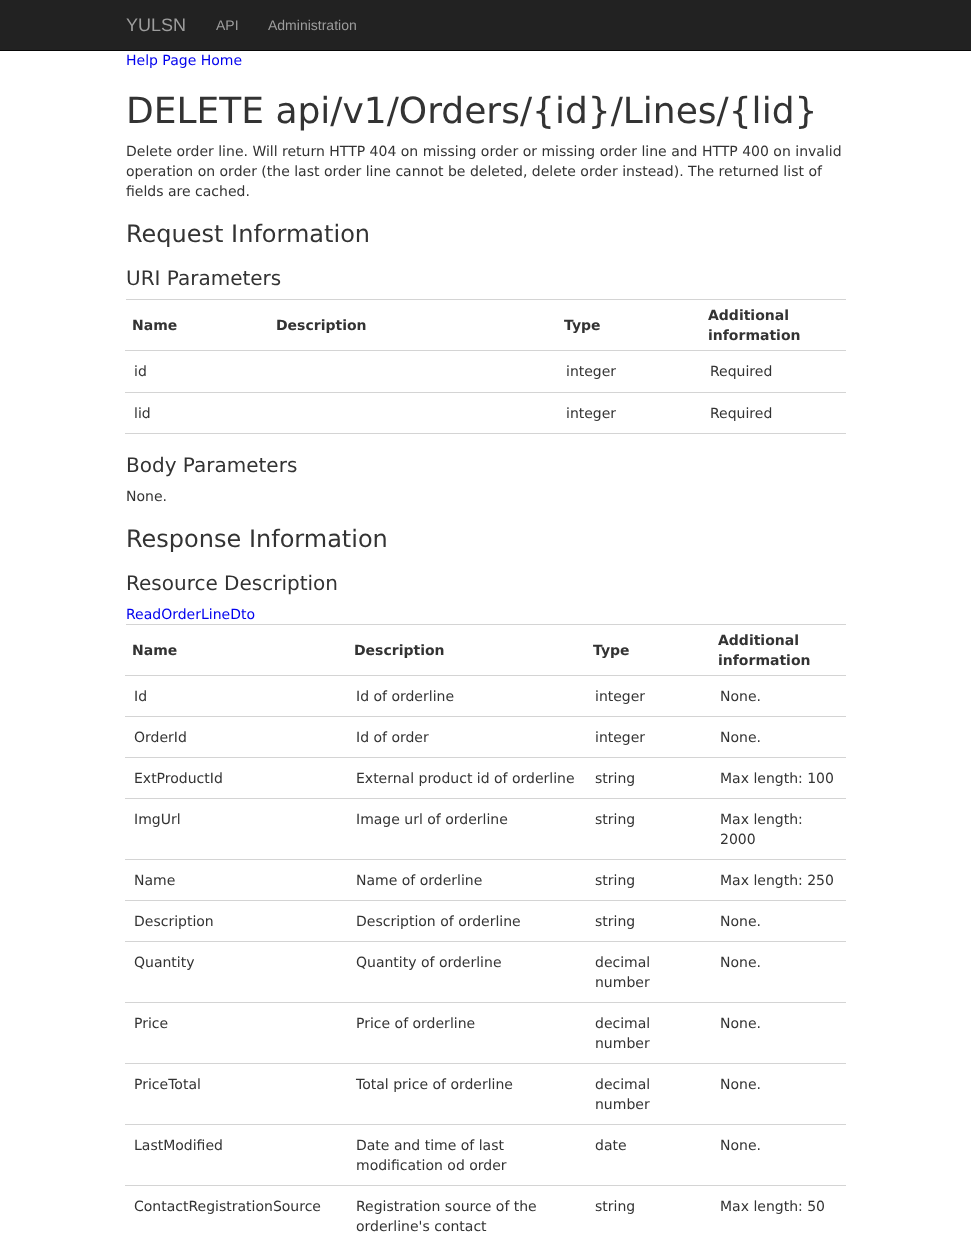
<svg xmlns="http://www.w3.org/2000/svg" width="971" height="1233">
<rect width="100%" height="100%" fill="#fff"/>
<rect width="971" height="50" fill="#222"/>
<rect y="50" width="971" height="1" fill="#080808"/>
<text x="126" y="31" style="font-family:Liberation Sans;font-size:18px;fill:#9d9d9d">YULSN</text>
<text x="216" y="30" style="font-family:Liberation Sans;font-size:14px;fill:#9d9d9d">API</text>
<text x="268" y="30" style="font-family:Liberation Sans;font-size:14px;fill:#9d9d9d">Administration</text>
<text x="126" y="65" style="font-family:DejaVu Sans;font-size:14px;fill:#00e">Help Page Home</text>
<text x="126" y="123" style="font-family:DejaVu Sans;font-size:36px;fill:#333">DELETE api/v1/Orders/{id}/Lines/{lid}</text>
<text x="126" y="156" style="font-family:DejaVu Sans;font-size:14px;fill:#333">Delete order line. Will return HTTP 404 on missing order or missing order line and HTTP 400 on invalid</text>
<text x="126" y="176" style="font-family:DejaVu Sans;font-size:14px;fill:#333">operation on order (the last order line cannot be deleted, delete order instead). The returned list of</text>
<text x="126" y="196" style="font-family:DejaVu Sans;font-size:14px;fill:#333">fields are cached.</text>
<text x="126" y="242" style="font-family:DejaVu Sans;font-size:24px;fill:#333">Request Information</text>
<text x="126" y="285" style="font-family:DejaVu Sans;font-size:20px;fill:#333">URI Parameters</text>
<rect x="126" y="299" width="720" height="1" fill="#d4d4d4"/>
<text x="132" y="330" style="font-family:DejaVu Sans;font-size:14px;font-weight:bold;fill:#333">Name</text>
<text x="276" y="330" style="font-family:DejaVu Sans;font-size:14px;font-weight:bold;fill:#333">Description</text>
<text x="564" y="330" style="font-family:DejaVu Sans;font-size:14px;font-weight:bold;fill:#333">Type</text>
<rect x="125" y="350" width="721" height="1" fill="#d4d4d4"/>
<text x="708" y="320" style="font-family:DejaVu Sans;font-size:14px;font-weight:bold;fill:#333">Additional</text>
<text x="708" y="340" style="font-family:DejaVu Sans;font-size:14px;font-weight:bold;fill:#333">information</text>
<text x="134" y="376" style="font-family:DejaVu Sans;font-size:14px;fill:#333">id</text>
<text x="566" y="376" style="font-family:DejaVu Sans;font-size:14px;fill:#333">integer</text>
<rect x="125" y="392" width="721" height="1" fill="#d4d4d4"/>
<text x="710" y="376" style="font-family:DejaVu Sans;font-size:14px;fill:#333">Required</text>
<text x="134" y="418" style="font-family:DejaVu Sans;font-size:14px;fill:#333">lid</text>
<text x="566" y="418" style="font-family:DejaVu Sans;font-size:14px;fill:#333">integer</text>
<rect x="125" y="433" width="721" height="1" fill="#d4d4d4"/>
<text x="710" y="418" style="font-family:DejaVu Sans;font-size:14px;fill:#333">Required</text>
<text x="126" y="472" style="font-family:DejaVu Sans;font-size:20px;fill:#333">Body Parameters</text>
<text x="126" y="501" style="font-family:DejaVu Sans;font-size:14px;fill:#333">None.</text>
<text x="126" y="547" style="font-family:DejaVu Sans;font-size:24px;fill:#333">Response Information</text>
<text x="126" y="590" style="font-family:DejaVu Sans;font-size:20px;fill:#333">Resource Description</text>
<text x="126" y="619" style="font-family:DejaVu Sans;font-size:14px;fill:#00e">ReadOrderLineDto</text>
<rect x="126" y="624" width="720" height="1" fill="#d4d4d4"/>
<text x="132" y="655" style="font-family:DejaVu Sans;font-size:14px;font-weight:bold;fill:#333">Name</text>
<text x="354" y="655" style="font-family:DejaVu Sans;font-size:14px;font-weight:bold;fill:#333">Description</text>
<text x="593" y="655" style="font-family:DejaVu Sans;font-size:14px;font-weight:bold;fill:#333">Type</text>
<rect x="125" y="675" width="721" height="1" fill="#d4d4d4"/>
<text x="718" y="645" style="font-family:DejaVu Sans;font-size:14px;font-weight:bold;fill:#333">Additional</text>
<text x="718" y="665" style="font-family:DejaVu Sans;font-size:14px;font-weight:bold;fill:#333">information</text>
<text x="134" y="701" style="font-family:DejaVu Sans;font-size:14px;fill:#333">Id</text>
<text x="356" y="701" style="font-family:DejaVu Sans;font-size:14px;fill:#333">Id of orderline</text>
<text x="595" y="701" style="font-family:DejaVu Sans;font-size:14px;fill:#333">integer</text>
<rect x="125" y="716" width="721" height="1" fill="#d4d4d4"/>
<text x="720" y="701" style="font-family:DejaVu Sans;font-size:14px;fill:#333">None.</text>
<text x="134" y="742" style="font-family:DejaVu Sans;font-size:14px;fill:#333">OrderId</text>
<text x="356" y="742" style="font-family:DejaVu Sans;font-size:14px;fill:#333">Id of order</text>
<text x="595" y="742" style="font-family:DejaVu Sans;font-size:14px;fill:#333">integer</text>
<rect x="125" y="757" width="721" height="1" fill="#d4d4d4"/>
<text x="720" y="742" style="font-family:DejaVu Sans;font-size:14px;fill:#333">None.</text>
<text x="134" y="783" style="font-family:DejaVu Sans;font-size:14px;fill:#333">ExtProductId</text>
<text x="356" y="783" style="font-family:DejaVu Sans;font-size:14px;fill:#333">External product id of orderline</text>
<text x="595" y="783" style="font-family:DejaVu Sans;font-size:14px;fill:#333">string</text>
<rect x="125" y="798" width="721" height="1" fill="#d4d4d4"/>
<text x="720" y="783" style="font-family:DejaVu Sans;font-size:14px;fill:#333">Max length: 100</text>
<text x="134" y="824" style="font-family:DejaVu Sans;font-size:14px;fill:#333">ImgUrl</text>
<text x="356" y="824" style="font-family:DejaVu Sans;font-size:14px;fill:#333">Image url of orderline</text>
<text x="595" y="824" style="font-family:DejaVu Sans;font-size:14px;fill:#333">string</text>
<rect x="125" y="859" width="721" height="1" fill="#d4d4d4"/>
<text x="720" y="824" style="font-family:DejaVu Sans;font-size:14px;fill:#333">Max length:</text>
<text x="720" y="844" style="font-family:DejaVu Sans;font-size:14px;fill:#333">2000</text>
<text x="134" y="885" style="font-family:DejaVu Sans;font-size:14px;fill:#333">Name</text>
<text x="356" y="885" style="font-family:DejaVu Sans;font-size:14px;fill:#333">Name of orderline</text>
<text x="595" y="885" style="font-family:DejaVu Sans;font-size:14px;fill:#333">string</text>
<rect x="125" y="900" width="721" height="1" fill="#d4d4d4"/>
<text x="720" y="885" style="font-family:DejaVu Sans;font-size:14px;fill:#333">Max length: 250</text>
<text x="134" y="926" style="font-family:DejaVu Sans;font-size:14px;fill:#333">Description</text>
<text x="356" y="926" style="font-family:DejaVu Sans;font-size:14px;fill:#333">Description of orderline</text>
<text x="595" y="926" style="font-family:DejaVu Sans;font-size:14px;fill:#333">string</text>
<rect x="125" y="941" width="721" height="1" fill="#d4d4d4"/>
<text x="720" y="926" style="font-family:DejaVu Sans;font-size:14px;fill:#333">None.</text>
<text x="134" y="967" style="font-family:DejaVu Sans;font-size:14px;fill:#333">Quantity</text>
<text x="356" y="967" style="font-family:DejaVu Sans;font-size:14px;fill:#333">Quantity of orderline</text>
<text x="595" y="967" style="font-family:DejaVu Sans;font-size:14px;fill:#333">decimal</text>
<text x="595" y="987" style="font-family:DejaVu Sans;font-size:14px;fill:#333">number</text>
<rect x="125" y="1002" width="721" height="1" fill="#d4d4d4"/>
<text x="720" y="967" style="font-family:DejaVu Sans;font-size:14px;fill:#333">None.</text>
<text x="134" y="1028" style="font-family:DejaVu Sans;font-size:14px;fill:#333">Price</text>
<text x="356" y="1028" style="font-family:DejaVu Sans;font-size:14px;fill:#333">Price of orderline</text>
<text x="595" y="1028" style="font-family:DejaVu Sans;font-size:14px;fill:#333">decimal</text>
<text x="595" y="1048" style="font-family:DejaVu Sans;font-size:14px;fill:#333">number</text>
<rect x="125" y="1063" width="721" height="1" fill="#d4d4d4"/>
<text x="720" y="1028" style="font-family:DejaVu Sans;font-size:14px;fill:#333">None.</text>
<text x="134" y="1089" style="font-family:DejaVu Sans;font-size:14px;fill:#333">PriceTotal</text>
<text x="356" y="1089" style="font-family:DejaVu Sans;font-size:14px;fill:#333">Total price of orderline</text>
<text x="595" y="1089" style="font-family:DejaVu Sans;font-size:14px;fill:#333">decimal</text>
<text x="595" y="1109" style="font-family:DejaVu Sans;font-size:14px;fill:#333">number</text>
<rect x="125" y="1124" width="721" height="1" fill="#d4d4d4"/>
<text x="720" y="1089" style="font-family:DejaVu Sans;font-size:14px;fill:#333">None.</text>
<text x="134" y="1150" style="font-family:DejaVu Sans;font-size:14px;fill:#333">LastModified</text>
<text x="356" y="1150" style="font-family:DejaVu Sans;font-size:14px;fill:#333">Date and time of last</text>
<text x="356" y="1170" style="font-family:DejaVu Sans;font-size:14px;fill:#333">modification od order</text>
<text x="595" y="1150" style="font-family:DejaVu Sans;font-size:14px;fill:#333">date</text>
<rect x="125" y="1185" width="721" height="1" fill="#d4d4d4"/>
<text x="720" y="1150" style="font-family:DejaVu Sans;font-size:14px;fill:#333">None.</text>
<text x="134" y="1211" style="font-family:DejaVu Sans;font-size:14px;fill:#333">ContactRegistrationSource</text>
<text x="356" y="1211" style="font-family:DejaVu Sans;font-size:14px;fill:#333">Registration source of the</text>
<text x="356" y="1231" style="font-family:DejaVu Sans;font-size:14px;fill:#333">orderline's contact</text>
<text x="595" y="1211" style="font-family:DejaVu Sans;font-size:14px;fill:#333">string</text>
<text x="720" y="1211" style="font-family:DejaVu Sans;font-size:14px;fill:#333">Max length: 50</text>
</svg>
